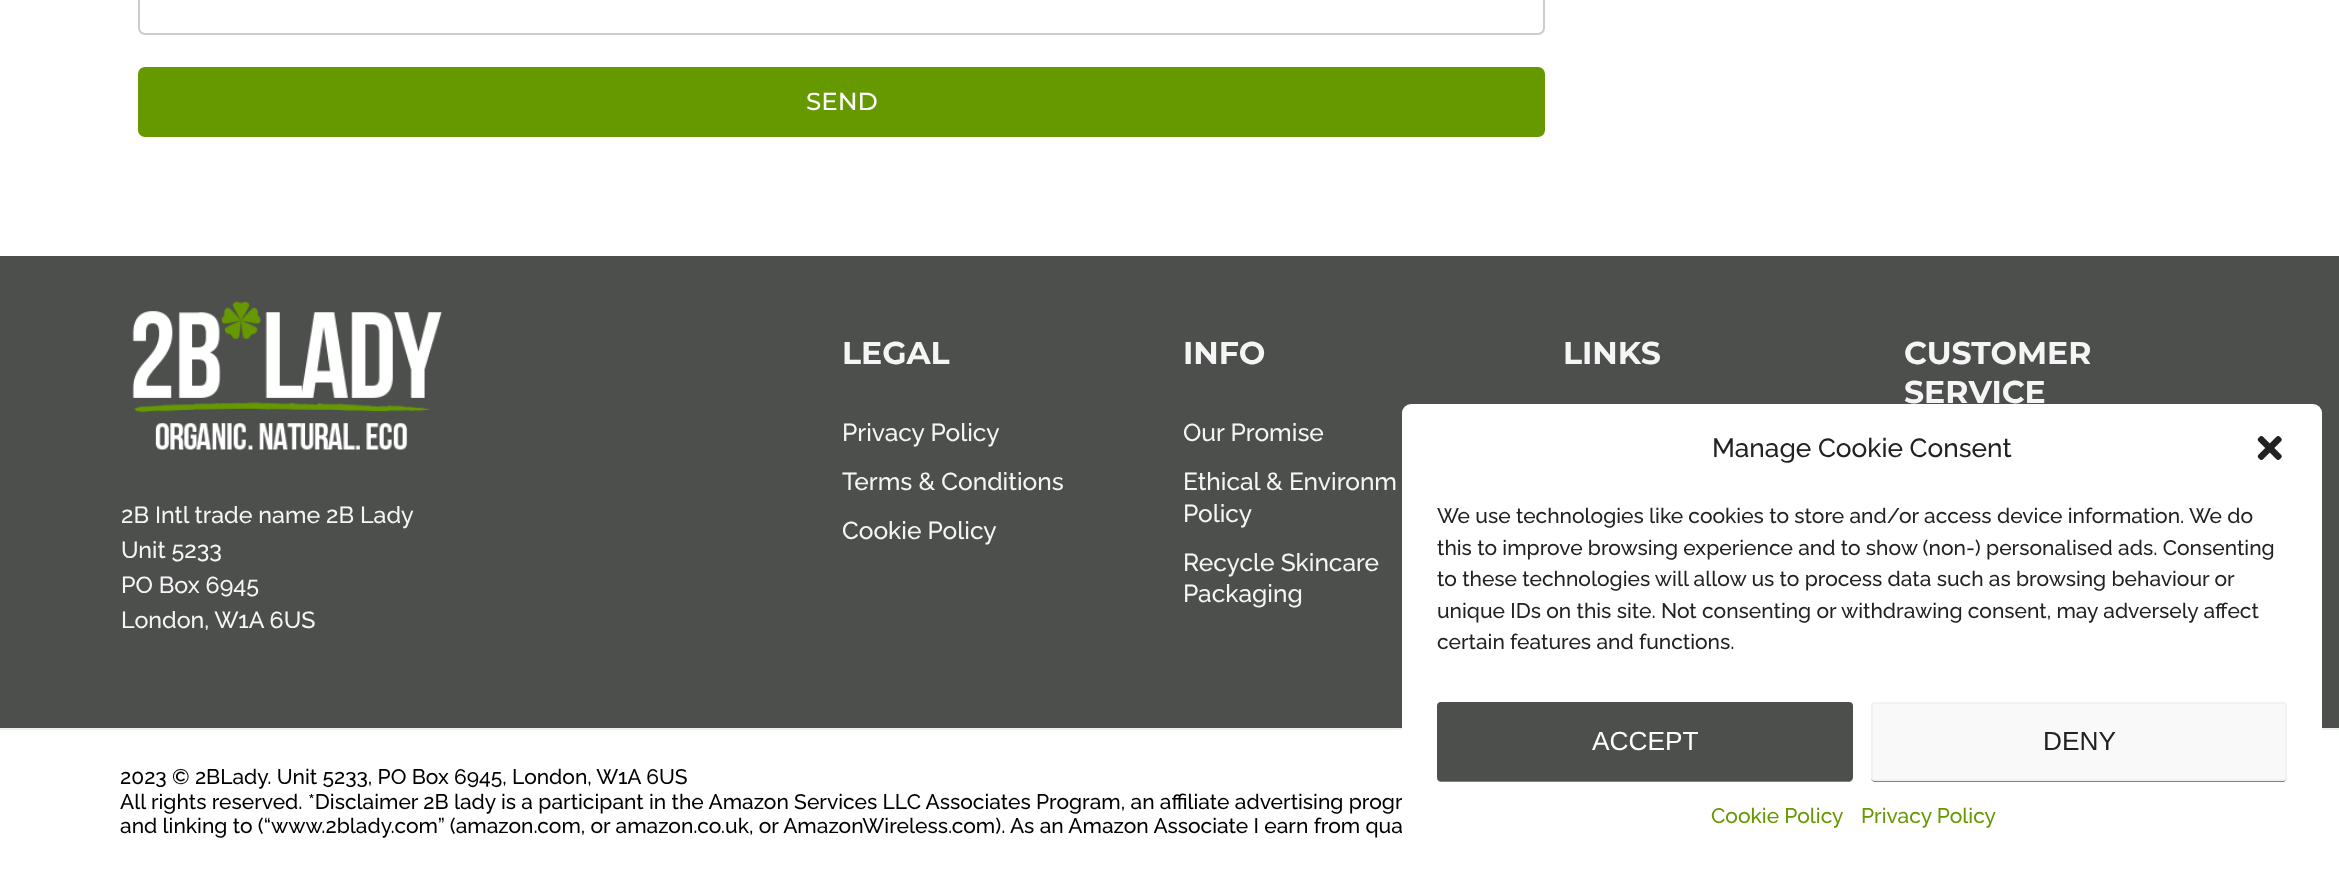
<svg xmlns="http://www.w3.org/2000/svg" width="2339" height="872">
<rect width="100%" height="100%" fill="#fff"/>
<rect x="139" y="-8" width="1405" height="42" rx="6" fill="none" stroke="#ccc" stroke-width="2"/>
<rect x="138" y="67" width="1407" height="70" rx="7" fill="#690"/>
<text x="806" y="110" style="font-family:Montserrat;font-size:24.5px;font-weight:500;fill:#fff">SEND</text>
<rect y="256" width="2339" height="472" fill="#4d4f4d"/>
<text x="842" y="364" style="font-family:Montserrat;font-size:31.5px;font-weight:bold;fill:#f5f5f5">LEGAL</text>
<text x="842" y="441" style="font-family:Raleway;font-size:24.5px;font-weight:500;fill:#f5f5f5">Privacy Policy</text>
<text x="842" y="490" style="font-family:Raleway;font-size:24.5px;font-weight:500;fill:#f5f5f5">Terms &amp; Conditions</text>
<text x="842" y="539" style="font-family:Raleway;font-size:24.5px;font-weight:500;fill:#f5f5f5">Cookie Policy</text>
<text x="1183" y="364" style="font-family:Montserrat;font-size:31.5px;font-weight:bold;fill:#f5f5f5">INFO</text>
<text x="1183" y="441" style="font-family:Raleway;font-size:24.5px;font-weight:500;fill:#f5f5f5">Our Promise</text>
<text x="1183" y="490" style="font-family:Raleway;font-size:24.5px;font-weight:500;fill:#f5f5f5">Ethical &amp; Environm</text>
<text x="1183" y="522" style="font-family:Raleway;font-size:24.5px;font-weight:500;fill:#f5f5f5">Policy</text>
<text x="1183" y="571" style="font-family:Raleway;font-size:24.5px;font-weight:500;fill:#f5f5f5">Recycle Skincare</text>
<text x="1183" y="602" style="font-family:Raleway;font-size:24.5px;font-weight:500;fill:#f5f5f5">Packaging</text>
<text x="1563" y="364" style="font-family:Montserrat;font-size:31.5px;font-weight:bold;fill:#f5f5f5">LINKS</text>
<text x="1904" y="364" style="font-family:Montserrat;font-size:31.5px;font-weight:bold;fill:#f5f5f5">CUSTOMER</text>
<text x="1904" y="403" style="font-family:Montserrat;font-size:31.5px;font-weight:bold;fill:#f5f5f5">SERVICE</text>
<image x="132" y="301" width="311" height="149" href="media/1.png"/>
<text x="121" y="523" style="font-family:Raleway;font-size:23.25px;font-weight:500;fill:#f5f5f5">2B Intl trade name 2B Lady</text>
<text x="121" y="558" style="font-family:Raleway;font-size:23.25px;font-weight:500;fill:#f5f5f5">Unit 5233</text>
<text x="121" y="593" style="font-family:Raleway;font-size:23.25px;font-weight:500;fill:#f5f5f5">PO Box 6945</text>
<text x="121" y="628" style="font-family:Raleway;font-size:23.25px;font-weight:500;fill:#f5f5f5">London, W1A 6US</text>
<rect y="728" width="2339" height="2" fill="#eee"/>
<text x="120" y="784" style="font-family:Raleway;font-size:21px;font-weight:500;fill:#000">2023 © 2BLady. Unit 5233, PO Box 6945, London, W1A 6US</text>
<text x="120" y="809" style="font-family:Raleway;font-size:21px;font-weight:500;fill:#000">All rights reserved. *Disclaimer 2B lady is a participant in the Amazon Services LLC Associates Program, an affiliate advertising progr</text>
<text x="120" y="833" style="font-family:Raleway;font-size:21px;font-weight:500;fill:#000">and linking to (“www.2blady.com” (amazon.com, or amazon.co.uk, or AmazonWireless.com). As an Amazon Associate I earn from qua</text>
<rect x="1402" y="404" width="920" height="452" rx="9" fill="#fff"/>
<text x="1712" y="457" style="font-family:Raleway;font-size:26.25px;font-weight:500;fill:#222">Manage Cookie Consent</text>
<image x="2257" y="436" width="25" height="24" href="media/2.png"/>
<text x="1437" y="523" style="font-family:Raleway;font-size:21px;font-weight:500;fill:#222">We use technologies like cookies to store and/or access device information. We do</text>
<text x="1437" y="555" style="font-family:Raleway;font-size:21px;font-weight:500;fill:#222">this to improve browsing experience and to show (non-) personalised ads. Consenting</text>
<text x="1437" y="586" style="font-family:Raleway;font-size:21px;font-weight:500;fill:#222">to these technologies will allow us to process data such as browsing behaviour or</text>
<text x="1437" y="618" style="font-family:Raleway;font-size:21px;font-weight:500;fill:#222">unique IDs on this site. Not consenting or withdrawing consent, may adversely affect</text>
<text x="1437" y="649" style="font-family:Raleway;font-size:21px;font-weight:500;fill:#222">certain features and functions.</text>
<path d="M1437 778c0 2 2 4 4 4h409l2-2l1-2c-1 2-2 2-3 2h-410l-2-1z" fill="#808080"/>
<rect x="1438" y="703" width="414" height="77" rx="3" fill="#4d4f4d" stroke="#4d4f4d" stroke-width="2"/>
<text x="1592" y="750" style="font-family:Liberation Sans;font-size:26.25px;fill:#fff">ACCEPT</text>
<path d="M1871 778c0 2 2 4 4 4h409l2-2l1-2l-1 1l-2 1h-410c-1 0-2 0-3-2z" fill="#808080"/>
<rect x="1872" y="703" width="414" height="77" rx="3" fill="#f9f9f9" stroke="#f2f2f2" stroke-width="2"/>
<text x="2043" y="750" style="font-family:Liberation Sans;font-size:26.25px;fill:#222">DENY</text>
<text x="1711" y="823" style="font-family:Raleway;font-size:21px;font-weight:500;fill:#690">Cookie Policy</text>
<text x="1861" y="823" style="font-family:Raleway;font-size:21px;font-weight:500;fill:#690">Privacy Policy</text>
</svg>
